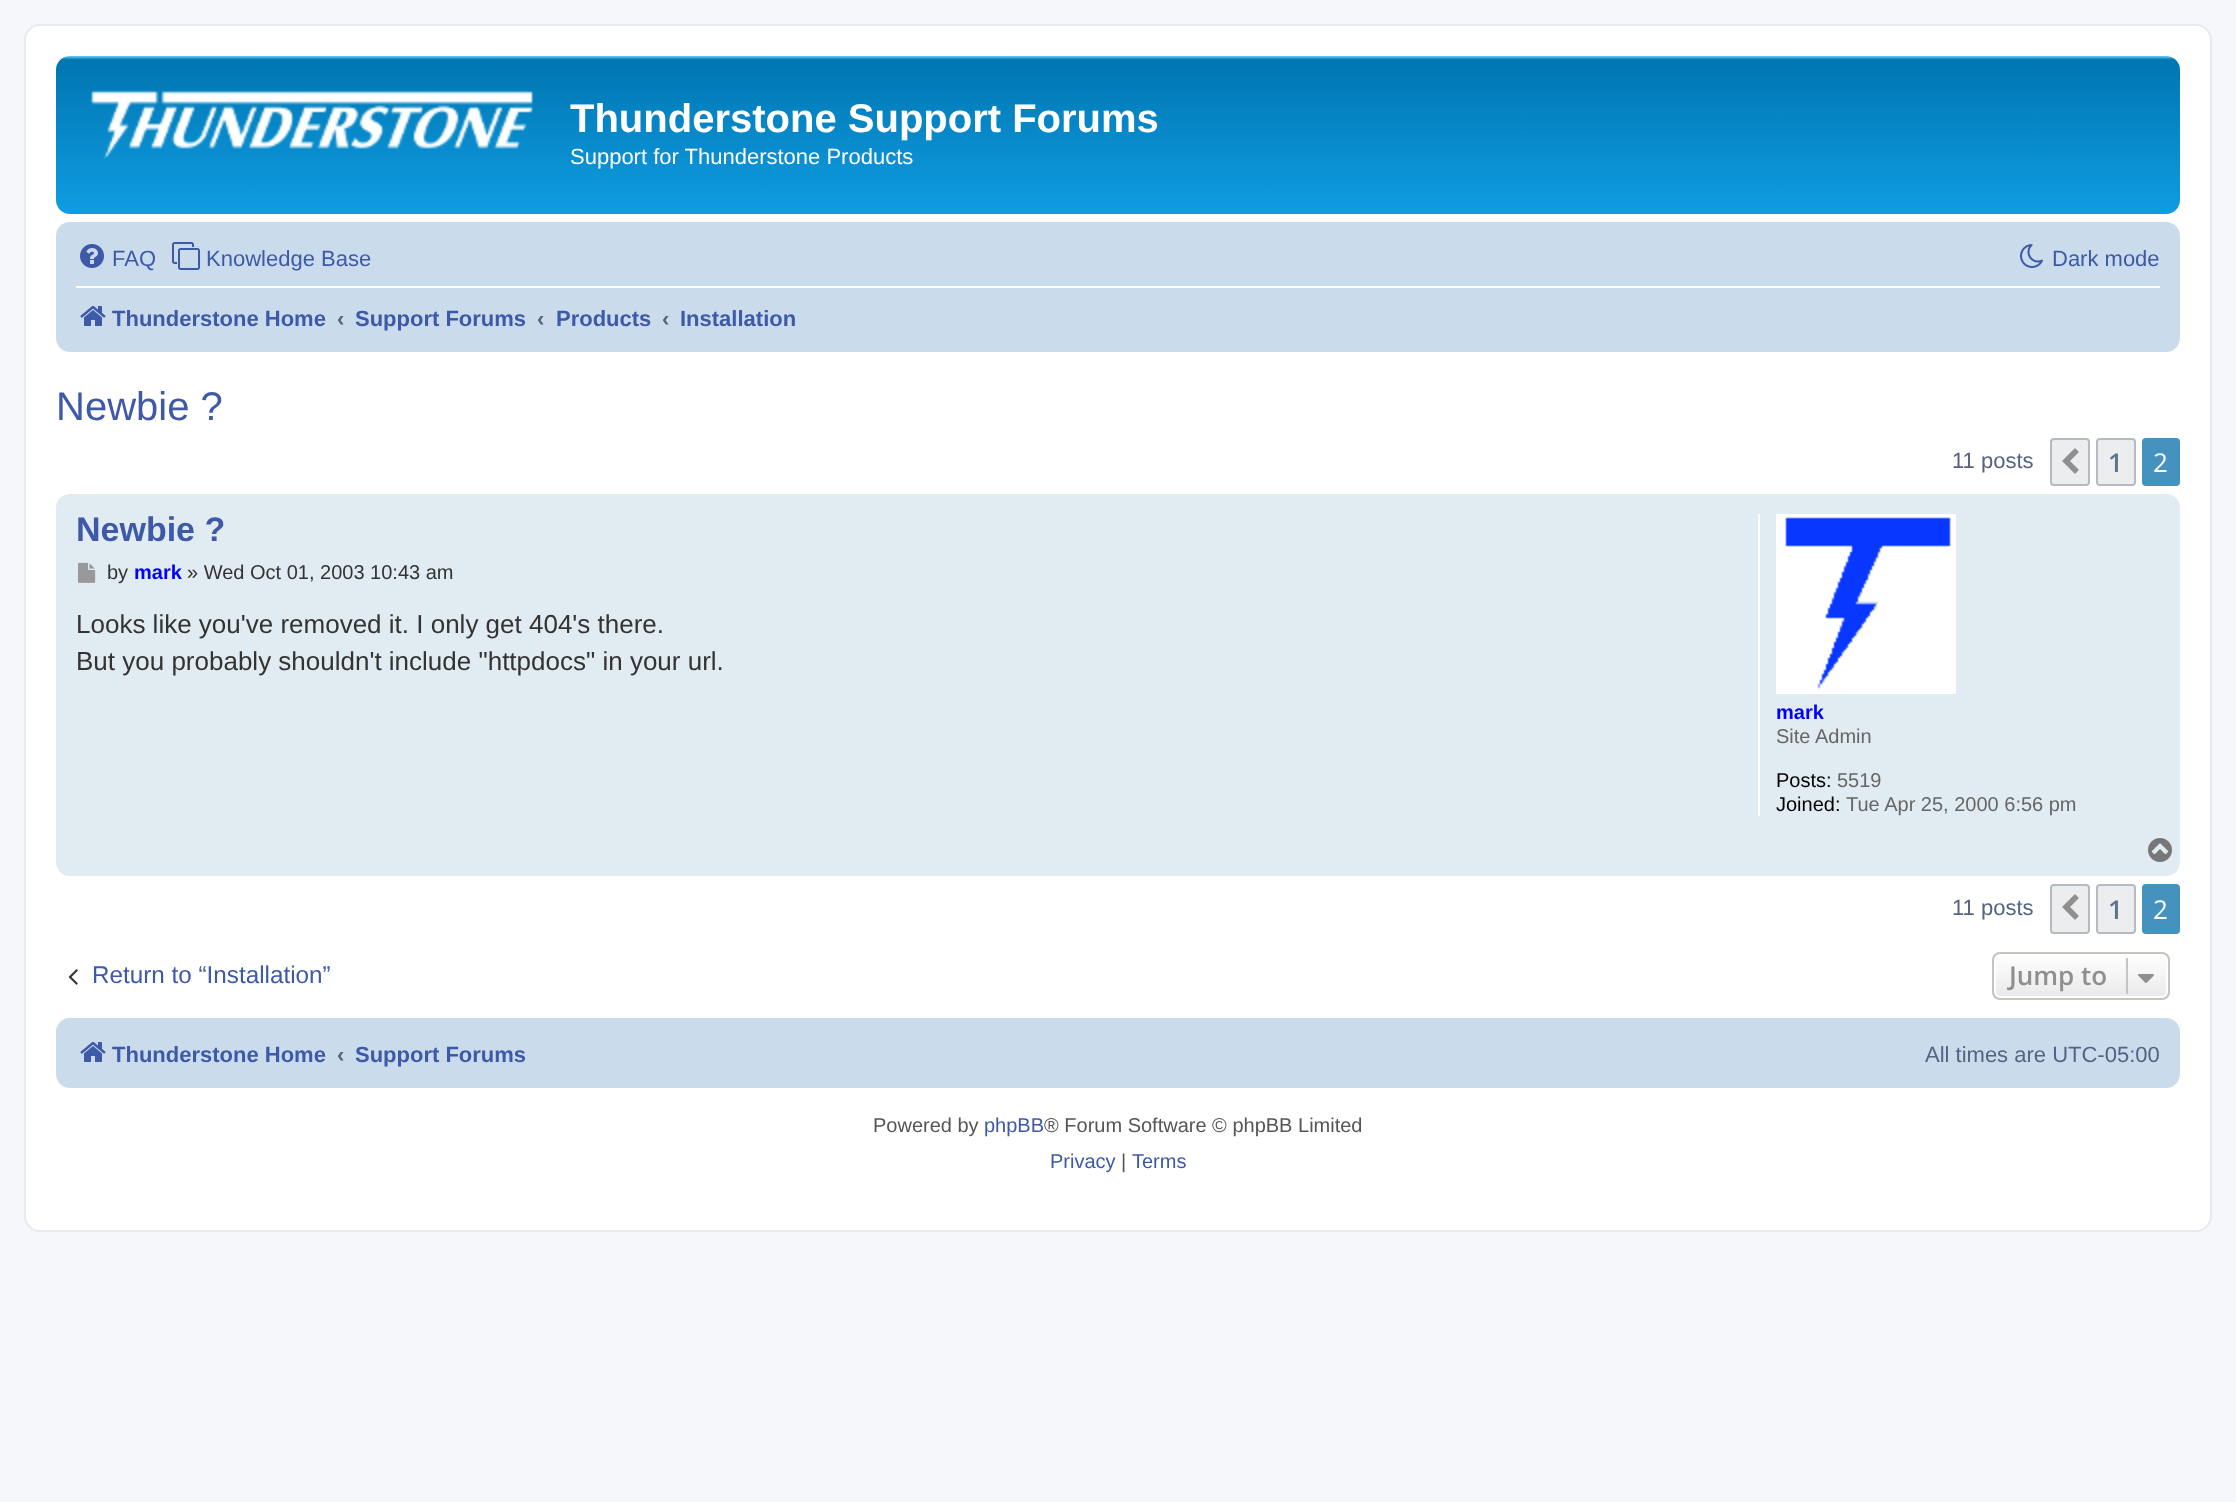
<svg xmlns="http://www.w3.org/2000/svg" width="2236" height="1502">
<defs>
<linearGradient id="g1" gradientUnits="userSpaceOnUse" x1="1118" y1="56" x2="1118" y2="240"><stop offset="0" stop-color="#6aceff"/><stop offset="0.02" stop-color="#0076b1"/><stop offset="1" stop-color="#12a3eb"/></linearGradient>
<clipPath id="clip1"><rect x="1992" y="952" width="178" height="48" rx="8"/></clipPath>
<linearGradient id="g2" gradientUnits="userSpaceOnUse" x1="2081" y1="954" x2="2081" y2="998"><stop offset="0" stop-color="#fff"/><stop offset="1" stop-color="#e9e9e9"/></linearGradient>
</defs>
<rect width="100%" height="100%" fill="#f5f7fa"/>
<rect x="25" y="25" width="2186" height="1206" rx="15" fill="#fff" stroke="#e6e9ed" stroke-width="2"/>
<rect x="56" y="56" width="2124" height="158" rx="14" fill="url(#g1)"/>
<image x="90" y="90" width="444" height="69" href="media/1.png"/>
<text x="570" y="132" style="font-family:Liberation Sans;font-size:40px;font-weight:bold;fill:#fff">Thunderstone Support Forums</text>
<text x="570" y="164" style="font-family:Liberation Sans;font-size:22px;fill:#fff">Support for Thunderstone Products</text>
<rect x="56" y="222" width="2124" height="130" rx="14" fill="#cadceb"/>
<image x="80" y="244" width="24" height="24" href="media/2.png"/>
<text x="112" y="266" style="font-family:Liberation Sans;font-size:22px;fill:#3d59a8">FAQ</text>
<image x="172" y="242" width="28" height="28" href="media/3.png"/>
<text x="206" y="266" style="font-family:Liberation Sans;font-size:22px;fill:#3d59a8">Knowledge Base</text>
<image x="2020" y="244" width="23" height="24" href="media/4.png"/>
<text x="2052" y="266" style="font-family:Liberation Sans;font-size:22px;fill:#3d59a8">Dark mode</text>
<rect x="76" y="286" width="2084" height="2" fill="#fff"/>
<image x="80" y="306" width="26" height="20" href="media/5.png"/>
<text x="112" y="326" style="font-family:Liberation Sans;font-size:22px;font-weight:bold;fill:#3d59a8">Thunderstone Home</text>
<text x="337" y="326" style="font-family:Liberation Sans;font-size:22px;font-weight:bold;fill:#536482">‹</text>
<text x="355" y="326" style="font-family:Liberation Sans;font-size:22px;font-weight:bold;fill:#3d59a8">Support Forums</text>
<text x="537" y="326" style="font-family:Liberation Sans;font-size:22px;font-weight:bold;fill:#536482">‹</text>
<text x="556" y="326" style="font-family:Liberation Sans;font-size:22px;font-weight:bold;fill:#3d59a8">Products</text>
<text x="662" y="326" style="font-family:Liberation Sans;font-size:22px;font-weight:bold;fill:#536482">‹</text>
<text x="680" y="326" style="font-family:Liberation Sans;font-size:22px;font-weight:bold;fill:#3d59a8">Installation</text>
<text x="56" y="420" style="font-family:Liberation Sans;font-size:40px;fill:#3d59a8">Newbie ?</text>
<text x="1952" y="468" style="font-family:Liberation Sans;font-size:22px;fill:#536482">11 posts</text>
<rect x="2051" y="439" width="38" height="46" rx="3" fill="#ecedee" stroke="#b4bac0" stroke-width="2"/>
<image x="2062" y="448" width="17" height="26" href="media/6.png"/>
<rect x="2097" y="439" width="38" height="46" rx="3" fill="#ecedee" stroke="#b4bac0" stroke-width="2"/>
<text x="2108" y="472" style="font-family:Open Sans;font-size:26px;font-weight:600;fill:#5c758c">1</text>
<rect x="2143" y="439" width="36" height="46" rx="3" fill="#4692bf" stroke="#4692bf" stroke-width="2"/>
<text x="2153" y="472" style="font-family:Open Sans;font-size:26px;fill:#fff">2</text>
<rect x="56" y="494" width="2124" height="382" rx="14" fill="#e1ebf2"/>
<text x="76" y="541" style="font-family:Liberation Sans;font-size:34px;font-weight:bold;fill:#3d59a8">Newbie ?</text>
<image x="78" y="562" width="18" height="21" href="media/7.png"/>
<text x="107" y="579" style="font-family:Liberation Sans;font-size:20px;fill:#333">by</text>
<text x="134" y="579" style="font-family:Liberation Sans;font-size:20px;font-weight:bold;fill:#00f">mark</text>
<text x="187" y="579" style="font-family:Liberation Sans;font-size:20px;fill:#333">» Wed Oct 01, 2003 10:43 am</text>
<text x="76" y="633" style="font-family:Liberation Sans;font-size:26px;fill:#333">Looks like you've removed it. I only get 404's there.</text>
<text x="76" y="670" style="font-family:Liberation Sans;font-size:26px;fill:#333">But you probably shouldn't include "httpdocs" in your url.</text>
<rect x="1758" y="514" width="2" height="302" fill="#fff"/>
<image x="1776" y="514" width="180" height="180" href="media/8.png"/>
<text x="1776" y="719" style="font-family:Liberation Sans;font-size:20px;font-weight:bold;fill:#00f">mark</text>
<text x="1776" y="743" style="font-family:Liberation Sans;font-size:20px;fill:#666">Site Admin</text>
<text x="1776" y="787" style="font-family:Liberation Sans;font-size:20px;fill:#000">Posts:</text>
<text x="1837" y="787" style="font-family:Liberation Sans;font-size:20px;fill:#666">5519</text>
<text x="1776" y="811" style="font-family:Liberation Sans;font-size:20px;fill:#000">Joined:</text>
<text x="1846" y="811" style="font-family:Liberation Sans;font-size:20px;fill:#666">Tue Apr 25, 2000 6:56 pm</text>
<image x="2148" y="838" width="24" height="24" href="media/9.png"/>
<text x="1952" y="915" style="font-family:Liberation Sans;font-size:22px;fill:#536482">11 posts</text>
<rect x="2051" y="885" width="38" height="48" rx="3" fill="#ecedee" stroke="#b4bac0" stroke-width="2"/>
<image x="2062" y="894" width="17" height="26" href="media/6.png"/>
<rect x="2097" y="885" width="38" height="48" rx="3" fill="#ecedee" stroke="#b4bac0" stroke-width="2"/>
<text x="2108" y="919" style="font-family:Open Sans;font-size:26px;font-weight:600;fill:#5c758c">1</text>
<rect x="2143" y="885" width="36" height="48" rx="3" fill="#4692bf" stroke="#4692bf" stroke-width="2"/>
<text x="2153" y="919" style="font-family:Open Sans;font-size:26px;fill:#fff">2</text>
<image x="68" y="969" width="10" height="16" href="media/10.png"/>
<text x="92" y="983" style="font-family:Liberation Sans;font-size:24.25px;fill:#3d59a8">Return to “Installation”</text>
<g clip-path="url(#clip1)">
<rect x="1992" y="954" width="178" height="44" fill="url(#g2)"/>
</g>
<rect x="1995" y="955" width="172" height="42" rx="5" fill="none" stroke="#fff" stroke-width="2"/>
<rect x="1993" y="953" width="176" height="46" rx="7" fill="none" stroke="#c7c3bf" stroke-width="2"/>
<text x="2009" y="985" style="font-family:Open Sans;font-size:26px;font-weight:600;fill:#8f8f8f">Jump to</text>
<rect x="2126" y="958" width="2" height="36" fill="#c7c3bf"/>
<image x="2138" y="974" width="16" height="9" href="media/11.png"/>
<rect x="56" y="1018" width="2124" height="70" rx="14" fill="#cadceb"/>
<image x="80" y="1042" width="26" height="20" href="media/5.png"/>
<text x="112" y="1062" style="font-family:Liberation Sans;font-size:22px;font-weight:bold;fill:#3d59a8">Thunderstone Home</text>
<text x="337" y="1062" style="font-family:Liberation Sans;font-size:22px;font-weight:bold;fill:#536482">‹</text>
<text x="355" y="1062" style="font-family:Liberation Sans;font-size:22px;font-weight:bold;fill:#3d59a8">Support Forums</text>
<text x="1925" y="1062" style="font-family:Liberation Sans;font-size:22px;fill:#536482">All times are UTC-05:00</text>
<text x="873" y="1132" style="font-family:Liberation Sans;font-size:20px;fill:#555">Powered by</text>
<text x="984" y="1132" style="font-family:Liberation Sans;font-size:20px;fill:#3d59a8">phpBB</text>
<text x="1044" y="1132" style="font-family:Liberation Sans;font-size:20px;fill:#555">® Forum Software © phpBB Limited</text>
<text x="1050" y="1168" style="font-family:Liberation Sans;font-size:20px;fill:#3d59a8">Privacy</text>
<text x="1121" y="1168" style="font-family:Liberation Sans;font-size:20px;fill:#555">|</text>
<text x="1132" y="1168" style="font-family:Liberation Sans;font-size:20px;fill:#3d59a8">Terms</text>
</svg>
